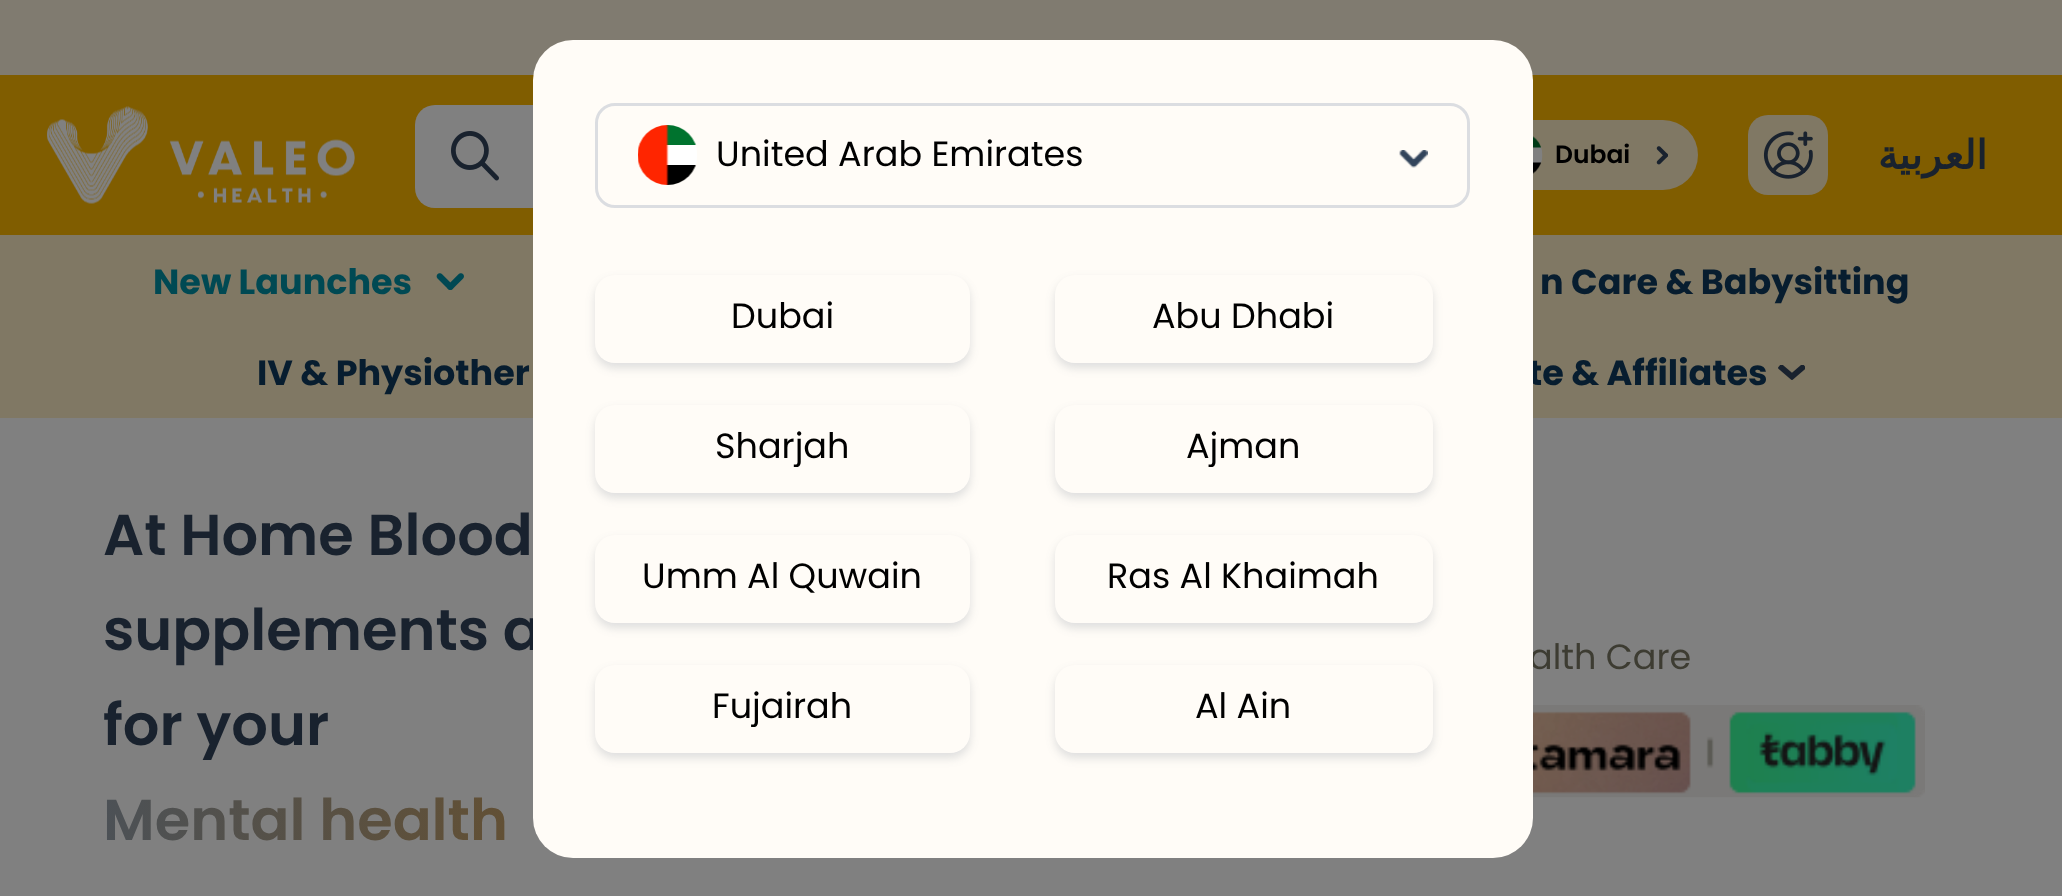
<svg xmlns="http://www.w3.org/2000/svg" width="2062" height="896">
<defs>
<linearGradient id="g1" gradientUnits="userSpaceOnUse" x1="981" y1="820" x2="103" y2="820"><stop offset="0" stop-color="#7c4f0e"/><stop offset="1" stop-color="#4c5156"/></linearGradient>
</defs>
<rect width="100%" height="100%" fill="#808080"/>
<rect width="2062" height="75" fill="#807b70"/>
<rect y="75" width="2062" height="160" fill="#805d00"/>
<image x="47" y="106" width="308" height="98" href="media/1.png"/>
<rect x="415" y="105" width="1008" height="103" rx="20" fill="#808080"/>
<image x="451" y="131" width="48" height="50" href="media/2.png"/>
<rect x="1483" y="120" width="215" height="70" rx="35" fill="#807864"/>
<image x="1533" y="136" width="10" height="38" href="media/3.png"/>
<text x="1555" y="163" style="font-family:Poppins;font-size:25px;font-weight:600;fill:#000">Dubai</text>
<image x="1656" y="146" width="12" height="19" href="media/4.png"/>
<rect x="1748" y="115" width="80" height="80" rx="20" fill="#807864"/>
<image x="1763" y="131" width="50" height="48" href="media/5.png"/>
<text x="1987" y="169" style="font-family:DejaVu Sans;font-size:40px;font-weight:bold;direction:rtl;fill:#19222e">العربية</text>
<rect y="235" width="2062" height="183" fill="#807864"/>
<text x="153" y="294" style="font-family:Poppins;font-size:35px;font-weight:bold;fill:#004953">New Launches</text>
<image x="436" y="273" width="28" height="17" href="media/6.png"/>
<text x="1540" y="294" style="font-family:Poppins;font-size:35px;font-weight:bold;fill:#071d2f">n Care &amp; Babysitting</text>
<text x="257" y="385" style="font-family:Poppins;font-size:35px;font-weight:bold;fill:#071d2f">IV &amp; Physiother</text>
<text x="1528" y="385" style="font-family:Poppins;font-size:35px;font-weight:bold;fill:#071d2f">te &amp; Affiliates</text>
<image x="1778" y="365" width="27" height="15" href="media/7.png"/>
<text x="103" y="650" style="font-family:Poppins;font-size:57.5px;font-weight:600;fill:#19222e">supplements a</text>
<text x="1529" y="669" style="font-family:Poppins;font-size:35px;fill:#3d3c32">alth Care</text>
<rect x="533" y="40" width="1000" height="818" rx="40" fill="#fffcf7"/>
<rect x="596.5" y="104.5" width="872" height="102" rx="18.5" fill="none" stroke="#dbdde1" stroke-width="3"/>
<image x="638" y="125" width="59" height="60" href="media/8.png"/>
<text x="716" y="166" style="font-family:Poppins;font-size:35px;fill:#000">United Arab Emirates</text>
<image x="1399" y="150" width="29" height="18" href="media/9.png"/>
<rect x="595" y="280" width="375" height="88" rx="20" fill="#32445b29" filter="blur(5px)"/>
<rect x="595" y="275" width="375" height="88" rx="20" fill="#fffcf7"/>
<text x="731" y="328" style="font-family:Poppins;font-size:35px;fill:#000">Dubai</text>
<rect x="1055" y="280" width="378" height="88" rx="20" fill="#32445b29" filter="blur(5px)"/>
<rect x="1055" y="275" width="378" height="88" rx="20" fill="#fffcf7"/>
<text x="1152" y="328" style="font-family:Poppins;font-size:35px;fill:#000">Abu Dhabi</text>
<rect x="595" y="410" width="375" height="88" rx="20" fill="#32445b29" filter="blur(5px)"/>
<rect x="595" y="405" width="375" height="88" rx="20" fill="#fffcf7"/>
<text x="715" y="458" style="font-family:Poppins;font-size:35px;fill:#000">Sharjah</text>
<rect x="1055" y="410" width="378" height="88" rx="20" fill="#32445b29" filter="blur(5px)"/>
<rect x="1055" y="405" width="378" height="88" rx="20" fill="#fffcf7"/>
<text x="1186" y="458" style="font-family:Poppins;font-size:35px;fill:#000">Ajman</text>
<rect x="595" y="540" width="375" height="88" rx="20" fill="#32445b29" filter="blur(5px)"/>
<rect x="595" y="535" width="375" height="88" rx="20" fill="#fffcf7"/>
<text x="642" y="588" style="font-family:Poppins;font-size:35px;fill:#000">Umm Al Quwain</text>
<rect x="1055" y="540" width="378" height="88" rx="20" fill="#32445b29" filter="blur(5px)"/>
<rect x="1055" y="535" width="378" height="88" rx="20" fill="#fffcf7"/>
<text x="1107" y="588" style="font-family:Poppins;font-size:35px;fill:#000">Ras Al Khaimah</text>
<rect x="595" y="670" width="375" height="88" rx="20" fill="#32445b29" filter="blur(5px)"/>
<rect x="595" y="665" width="375" height="88" rx="20" fill="#fffcf7"/>
<text x="712" y="718" style="font-family:Poppins;font-size:35px;fill:#000">Fujairah</text>
<rect x="1055" y="670" width="378" height="88" rx="20" fill="#32445b29" filter="blur(5px)"/>
<rect x="1055" y="665" width="378" height="88" rx="20" fill="#fffcf7"/>
<text x="1195" y="718" style="font-family:Poppins;font-size:35px;fill:#000">Al Ain</text>
<text x="103" y="555" style="font-family:Poppins;font-size:57.5px;font-weight:600;fill:#19222e">At Home Blood</text>
<text x="103" y="745" style="font-family:Poppins;font-size:57.5px;font-weight:600;fill:#19222e">for your</text>
<text x="103" y="840" style="font-family:Poppins;font-size:57.5px;font-weight:600;fill:url(#g1)">Mental health</text>
<image x="1533" y="705" width="392" height="93" href="media/10.png"/>
</svg>
